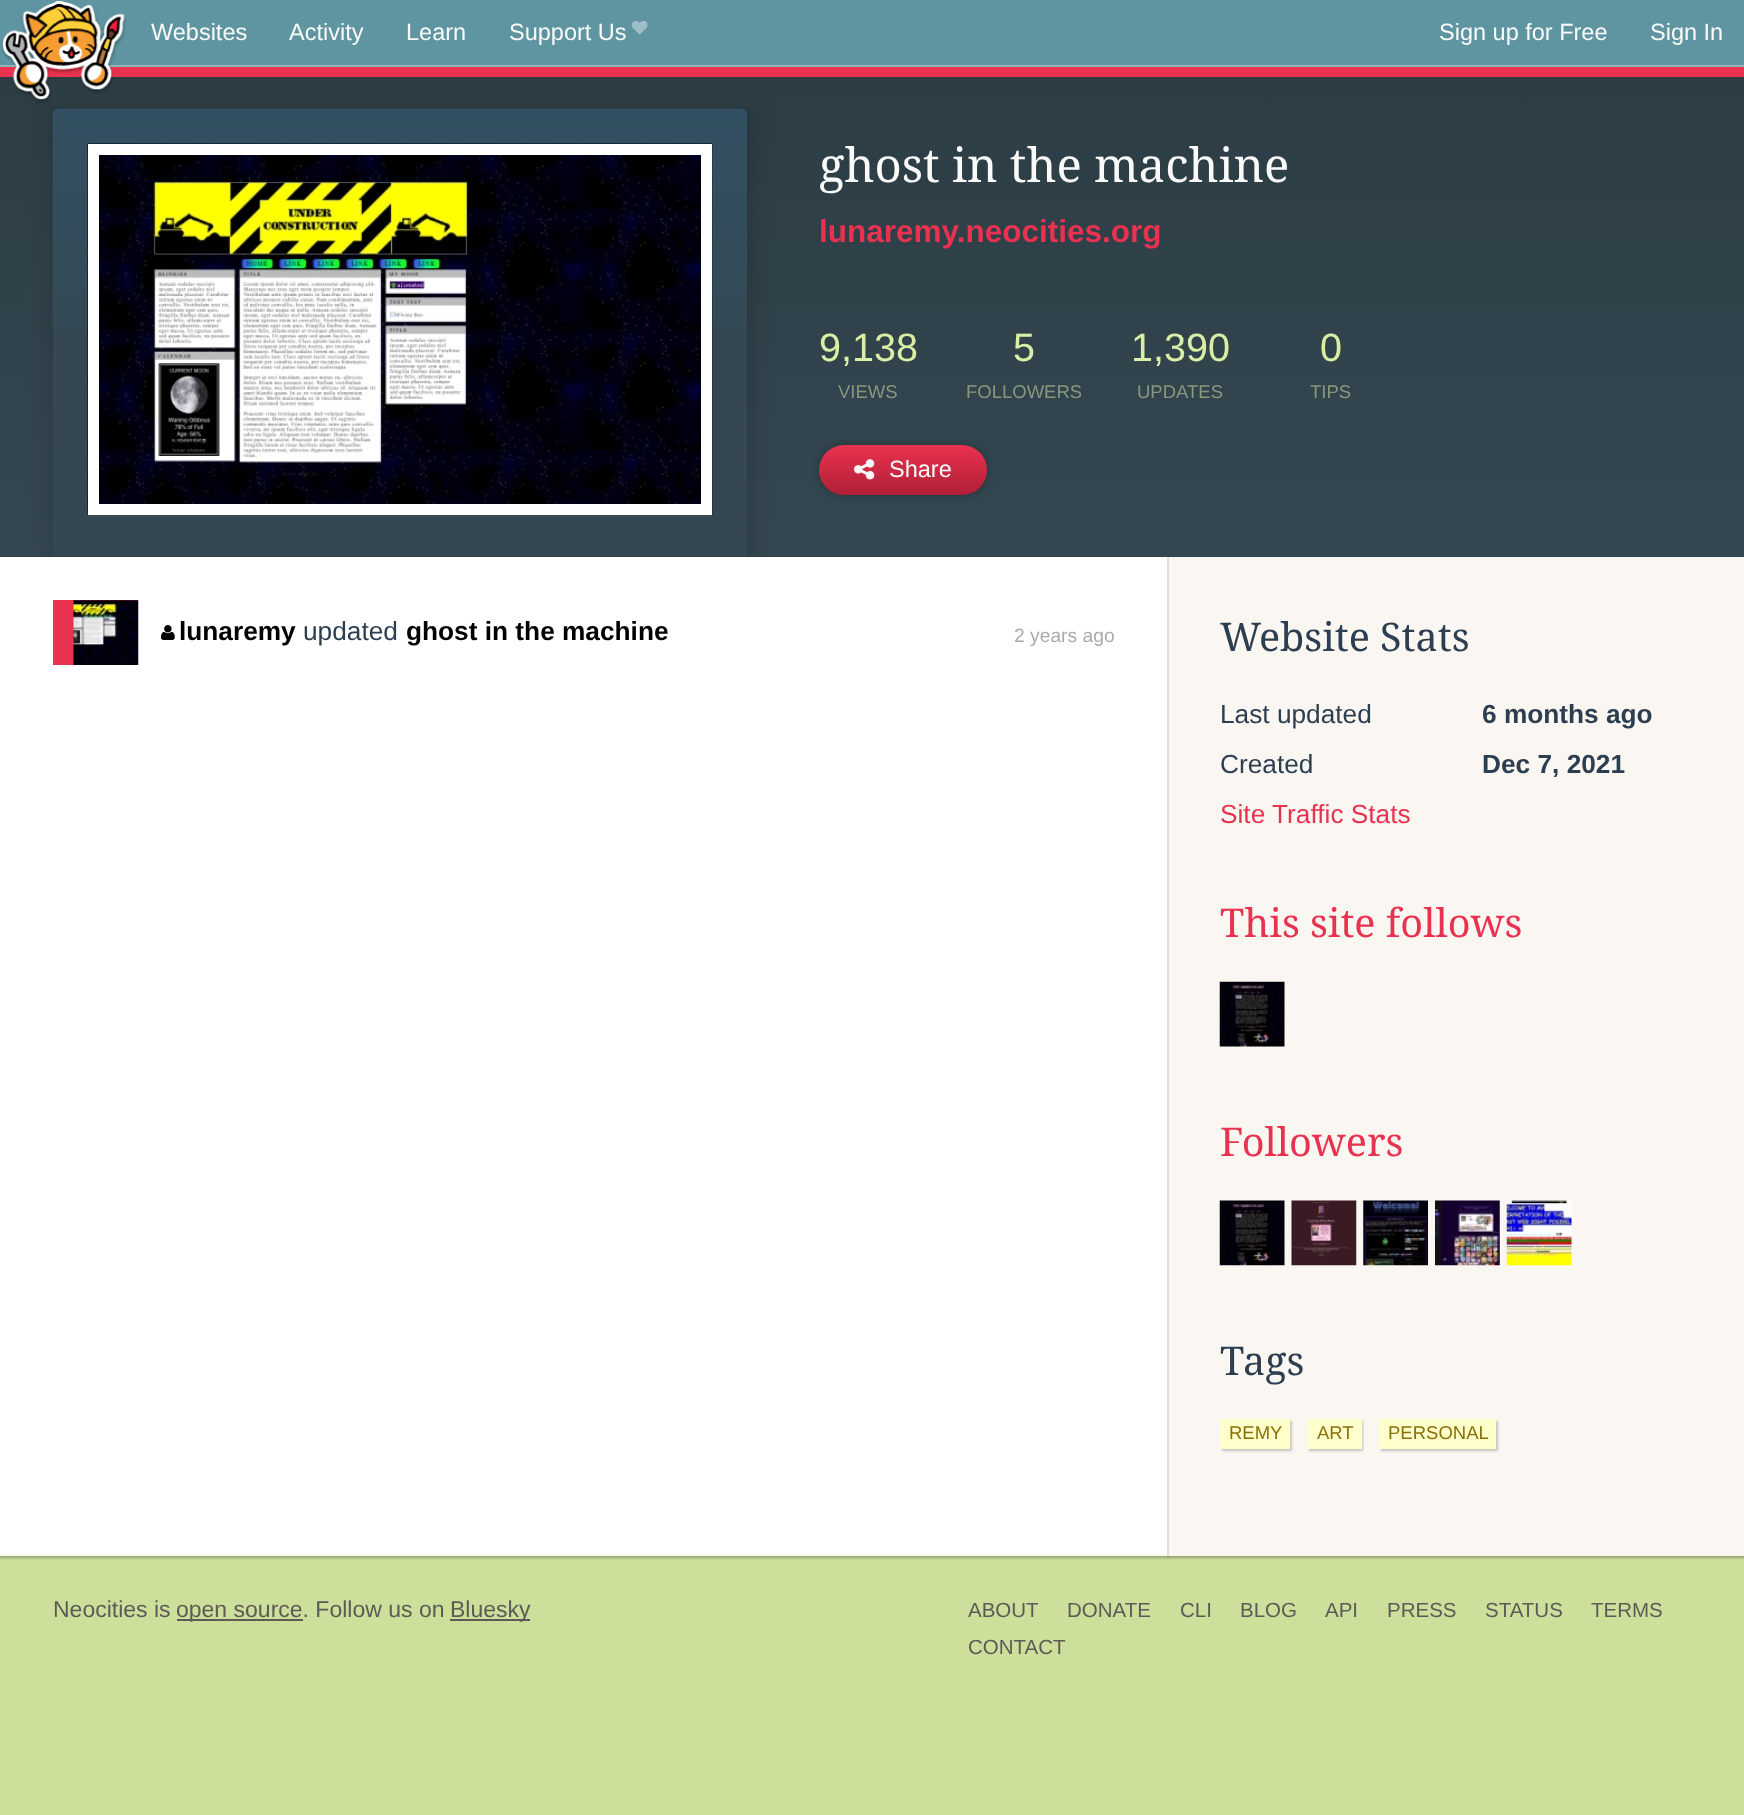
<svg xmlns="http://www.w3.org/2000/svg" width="1744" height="1815">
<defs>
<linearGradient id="g1" gradientUnits="userSpaceOnUse" x1="872" y1="38" x2="872" y2="557"><stop offset="0" stop-color="#2b3c43"/><stop offset="1" stop-color="#354751"/></linearGradient>
<clipPath id="clip1"><rect x="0" y="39" width="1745" height="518"/></clipPath>
<linearGradient id="g2" gradientUnits="userSpaceOnUse" x1="903" y1="445" x2="903" y2="495"><stop offset="0" stop-color="#e93250"/><stop offset="1" stop-color="#b11f36"/></linearGradient>
</defs>
<rect width="100%" height="100%" fill="#ccdf9b"/>
<rect y="77" width="1744" height="480" fill="url(#g1)"/>
<rect y="1556" width="1744" height="2" fill="#b3c388"/>
<g clip-path="url(#clip1)">
<rect x="51" y="109" width="702" height="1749" rx="11" fill="#00000026" filter="blur(10.5px)"/>
</g>
<rect y="67" width="1744" height="10" fill="#e93250"/>
<rect width="1744" height="65" fill="#5e95a1"/>
<rect y="65" width="1744" height="2" fill="#92b4bd"/>
<image x="1" y="1" width="126" height="102" href="media/1.png"/>
<text x="151" y="40" style="font-family:Liberation Sans;font-size:23.5px;fill:#fafafa">Websites</text>
<text x="289" y="40" style="font-family:Liberation Sans;font-size:23.5px;fill:#fafafa">Activity</text>
<text x="406" y="40" style="font-family:Liberation Sans;font-size:23.5px;fill:#fafafa">Learn</text>
<text x="509" y="40" style="font-family:Liberation Sans;font-size:23.5px;fill:#fafafa">Support Us</text>
<image x="631" y="20" width="17" height="15" href="media/2.png"/>
<text x="1439" y="40" style="font-family:Liberation Sans;font-size:23.5px;fill:#fafafa">Sign up for Free</text>
<text x="1650" y="40" style="font-family:Liberation Sans;font-size:23.5px;fill:#fafafa">Sign In</text>
<path d="M60 109h680c4 0 7 3 7 7v441h-694v-441c0-4 3-7 7-7z" fill="#354751"/>
<image x="52" y="108" width="695" height="221" href="media/3.png"/>
<image x="87" y="143" width="626" height="372" href="media/4.png"/>
<rect x="93.5" y="149.5" width="613" height="360" fill="none" stroke="#fff" stroke-width="11"/>
<text x="819" y="182" style="font-family:Droid Serif;font-size:47.25px;fill:#fafafa">ghost in the machine</text>
<text x="819" y="242" style="font-family:Liberation Sans;font-size:31.5px;font-weight:bold;fill:#e93250">lunaremy.neocities.org</text>
<text x="819" y="361" style="font-family:Liberation Sans;font-size:39.5px;fill:#daeea5">9,138</text>
<text x="838" y="398" style="font-family:Liberation Sans;font-size:18.5px;fill:#84997e">VIEWS</text>
<text x="1013" y="361" style="font-family:Liberation Sans;font-size:39.5px;fill:#daeea5">5</text>
<text x="966" y="398" style="font-family:Liberation Sans;font-size:18.5px;fill:#84997e">FOLLOWERS</text>
<text x="1131" y="361" style="font-family:Liberation Sans;font-size:39.5px;fill:#daeea5">1,390</text>
<text x="1137" y="398" style="font-family:Liberation Sans;font-size:18.5px;fill:#84997e">UPDATES</text>
<text x="1320" y="361" style="font-family:Liberation Sans;font-size:39.5px;fill:#daeea5">0</text>
<text x="1310" y="398" style="font-family:Liberation Sans;font-size:18.5px;fill:#84997e">TIPS</text>
<rect x="819" y="445" width="168" height="50" rx="25" fill="#00000040" filter="blur(5px)"/>
<rect x="819" y="445" width="168" height="50" rx="25" fill="url(#g2)"/>
<image x="854" y="459" width="21" height="21" href="media/5.png"/>
<text x="889" y="477" style="font-family:Liberation Sans;font-size:23.5px;fill:#fafafa">Share</text>
<rect x="-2" y="557" width="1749" height="1002" fill="#0000001a" filter="blur(1px)"/>
<rect y="557" width="1744" height="999" fill="#faf6f1"/>
<rect x="1167" y="557" width="2" height="999" fill="#ddd"/>
<rect y="557" width="1167" height="997" fill="#fff"/>
<rect x="53" y="600" width="85" height="65" fill="#e93250"/>
<image x="73" y="600" width="66" height="65" href="media/6.png"/>
<image x="161" y="625" width="14" height="15" href="media/7.png"/>
<text x="179" y="640" style="font-family:Liberation Sans;font-size:26.25px;font-weight:bold;fill:#000">lunaremy</text>
<text x="303" y="640" style="font-family:Liberation Sans;font-size:26.25px;fill:#2c3e50">updated</text>
<text x="406" y="640" style="font-family:Liberation Sans;font-size:26.25px;font-weight:bold;fill:#000">ghost in the machine</text>
<text x="1014" y="642" style="font-family:Liberation Sans;font-size:19.25px;fill:#aaa">2 years ago</text>
<text x="1220" y="651" style="font-family:Droid Serif;font-size:39.5px;fill:#2c3e50">Website Stats</text>
<text x="1220" y="723" style="font-family:Liberation Sans;font-size:26.25px;fill:#2c3e50">Last updated</text>
<text x="1482" y="723" style="font-family:Liberation Sans;font-size:26.25px;font-weight:bold;fill:#2c3e50">6 months ago</text>
<text x="1220" y="773" style="font-family:Liberation Sans;font-size:26.25px;fill:#2c3e50">Created</text>
<text x="1482" y="773" style="font-family:Liberation Sans;font-size:26.25px;font-weight:bold;fill:#2c3e50">Dec 7, 2021</text>
<text x="1220" y="823" style="font-family:Liberation Sans;font-size:26.25px;fill:#e93250">Site Traffic Stats</text>
<text x="1220" y="937" style="font-family:Droid Serif;font-size:39.5px;fill:#e93250">This site follows</text>
<image x="1219" y="981" width="66" height="66" href="media/8.png"/>
<text x="1220" y="1156" style="font-family:Droid Serif;font-size:39.5px;fill:#e93250">Followers</text>
<image x="1219" y="1200" width="66" height="66" href="media/9.png"/>
<image x="1291" y="1200" width="66" height="66" href="media/10.png"/>
<image x="1363" y="1200" width="65" height="66" href="media/11.png"/>
<image x="1435" y="1200" width="65" height="66" href="media/12.png"/>
<image x="1506" y="1200" width="66" height="66" href="media/13.png"/>
<text x="1220" y="1375" style="font-family:Droid Serif;font-size:39.5px;fill:#2c3e50">Tags</text>
<rect x="1222" y="1421" width="70" height="30" fill="#00000033" filter="blur(1px)"/>
<rect x="1220" y="1419" width="70" height="30" fill="#ffc"/>
<text x="1229" y="1439" style="font-family:Liberation Sans;font-size:18.5px;fill:#897106">REMY</text>
<rect x="1309" y="1421" width="54" height="30" fill="#00000033" filter="blur(1px)"/>
<rect x="1307" y="1419" width="55" height="30" fill="#ffc"/>
<text x="1317" y="1439" style="font-family:Liberation Sans;font-size:18.5px;fill:#897106">ART</text>
<rect x="1381" y="1421" width="117" height="30" fill="#00000033" filter="blur(1px)"/>
<rect x="1379" y="1419" width="117" height="30" fill="#ffc"/>
<text x="1388" y="1439" style="font-family:Liberation Sans;font-size:18.5px;fill:#897106">PERSONAL</text>
<text x="53" y="1617" style="font-family:Liberation Sans;font-size:23px;fill:#5e5b56">Neocities is</text>
<rect x="177" y="1619" width="126" height="2" fill="#5e5b56"/>
<text x="176" y="1617" style="font-family:Liberation Sans;font-size:23px;fill:#5e5b56">open source. Follow us on</text>
<rect x="450" y="1619" width="80" height="2" fill="#5e5b56"/>
<text x="450" y="1617" style="font-family:Liberation Sans;font-size:23px;fill:#5e5b56">Bluesky</text>
<text x="968" y="1617" style="font-family:Liberation Sans;font-size:20.5px;fill:#5e5b56">ABOUT</text>
<text x="1067" y="1617" style="font-family:Liberation Sans;font-size:20.5px;fill:#5e5b56">DONATE</text>
<text x="1180" y="1617" style="font-family:Liberation Sans;font-size:20.5px;fill:#5e5b56">CLI</text>
<text x="1240" y="1617" style="font-family:Liberation Sans;font-size:20.5px;fill:#5e5b56">BLOG</text>
<text x="1325" y="1617" style="font-family:Liberation Sans;font-size:20.5px;fill:#5e5b56">API</text>
<text x="1387" y="1617" style="font-family:Liberation Sans;font-size:20.5px;fill:#5e5b56">PRESS</text>
<text x="1485" y="1617" style="font-family:Liberation Sans;font-size:20.5px;fill:#5e5b56">STATUS</text>
<text x="1591" y="1617" style="font-family:Liberation Sans;font-size:20.5px;fill:#5e5b56">TERMS</text>
<text x="968" y="1654" style="font-family:Liberation Sans;font-size:20.5px;fill:#5e5b56">CONTACT</text>
</svg>
